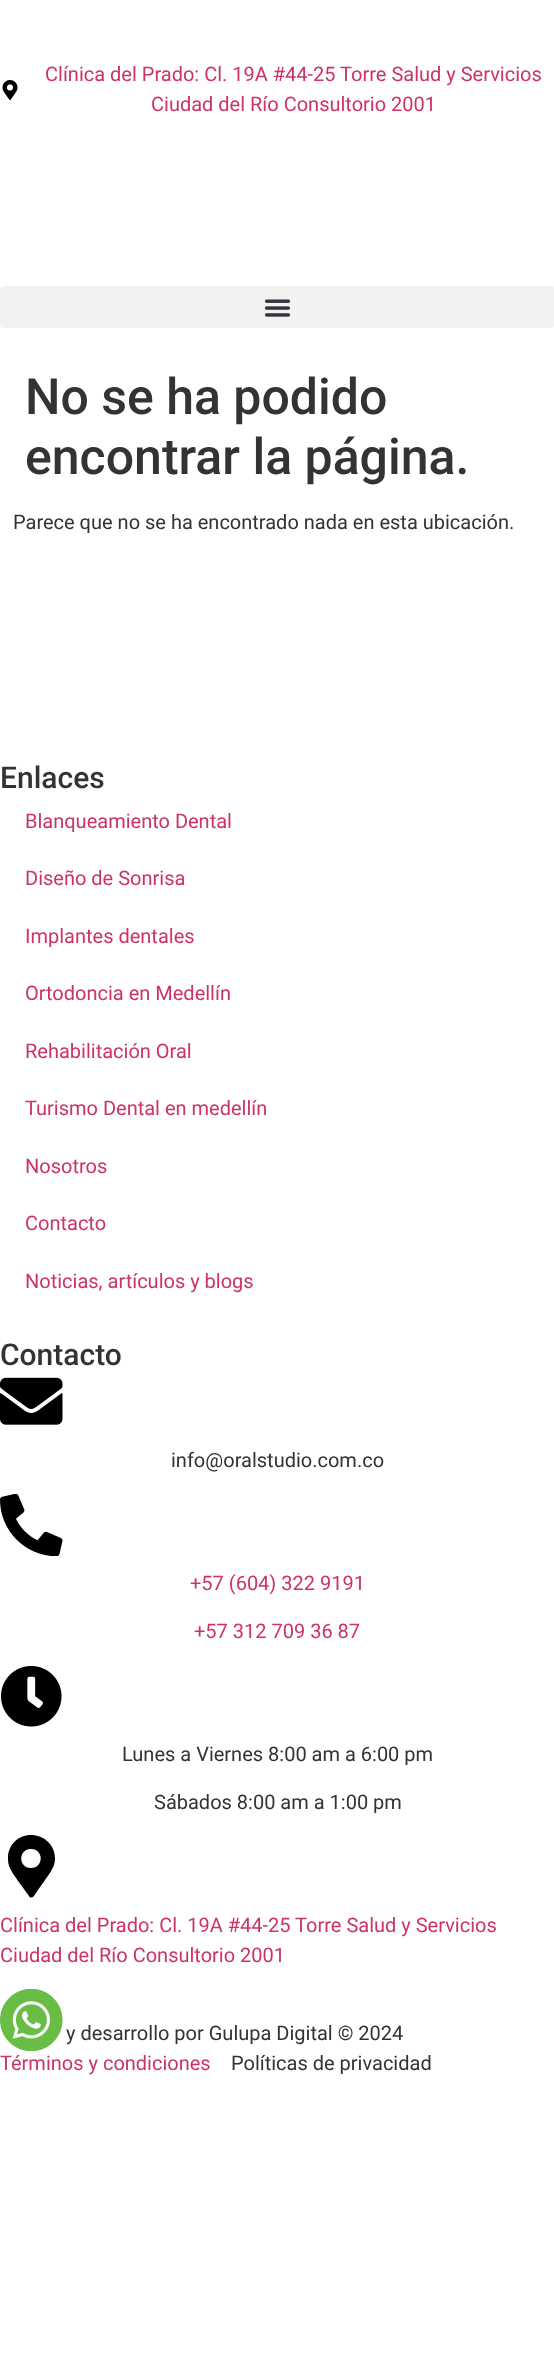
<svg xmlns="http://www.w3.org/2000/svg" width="554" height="2379">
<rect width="100%" height="100%" fill="#fff"/>
<image x="2" y="80" width="16" height="20" href="media/1.png"/>
<text x="45" y="81" style="font-family:Roboto;font-size:20px;fill:#c36">Clínica del Prado: Cl. 19A #44-25 Torre Salud y Servicios</text>
<text x="151" y="111" style="font-family:Roboto;font-size:20px;fill:#c36">Ciudad del Río Consultorio 2001</text>
<rect y="286" width="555" height="42" rx="4" fill="#f2f2f2"/>
<image x="264" y="299" width="27" height="18" href="media/2.png"/>
<text x="25" y="414" style="font-family:Roboto;font-size:50px;font-weight:500;fill:#333">No se ha podido</text>
<text x="25" y="474" style="font-family:Roboto;font-size:50px;font-weight:500;fill:#333">encontrar la página.</text>
<text x="13" y="529" style="font-family:Roboto;font-size:20px;fill:#333">Parece que no se ha encontrado nada en esta ubicación.</text>
<text x="0" y="788" style="font-family:Roboto;font-size:30px;font-weight:500;fill:#333">Enlaces</text>
<text x="25" y="828" style="font-family:Roboto;font-size:20px;fill:#c36">Blanqueamiento Dental</text>
<text x="25" y="885" style="font-family:Roboto;font-size:20px;fill:#c36">Diseño de Sonrisa</text>
<text x="25" y="943" style="font-family:Roboto;font-size:20px;fill:#c36">Implantes dentales</text>
<text x="25" y="1000" style="font-family:Roboto;font-size:20px;fill:#c36">Ortodoncia en Medellín</text>
<text x="25" y="1058" style="font-family:Roboto;font-size:20px;fill:#c36">Rehabilitación Oral</text>
<text x="25" y="1115" style="font-family:Roboto;font-size:20px;fill:#c36">Turismo Dental en medellín</text>
<text x="25" y="1173" style="font-family:Roboto;font-size:20px;fill:#c36">Nosotros</text>
<text x="25" y="1230" style="font-family:Roboto;font-size:20px;fill:#c36">Contacto</text>
<text x="25" y="1288" style="font-family:Roboto;font-size:20px;fill:#c36">Noticias, artículos y blogs</text>
<text x="0" y="1365" style="font-family:Roboto;font-size:30px;font-weight:500;fill:#333">Contacto</text>
<image x="0" y="1377" width="63" height="48" href="media/3.png"/>
<text x="171" y="1467" style="font-family:Roboto;font-size:20px;fill:#333">info@oralstudio.com.co</text>
<image x="0" y="1494" width="63" height="62" href="media/4.png"/>
<text x="190" y="1590" style="font-family:Roboto;font-size:20px;fill:#c36">+57 (604) 322 9191</text>
<text x="194" y="1638" style="font-family:Roboto;font-size:20px;fill:#c36">+57 312 709 36 87</text>
<image x="1" y="1666" width="61" height="61" href="media/5.png"/>
<text x="122" y="1761" style="font-family:Roboto;font-size:20px;fill:#333">Lunes a Viernes 8:00 am a 6:00 pm</text>
<text x="154" y="1809" style="font-family:Roboto;font-size:20px;fill:#333">Sábados 8:00 am a 1:00 pm</text>
<path d="M29 1896c-18-25-21-28-21-38c0-13 10-23 23-23c13 0 24 10 24 23c0 10-4 13-21 38c-2 2-4 2-5 0zm2-28c13 0 13-19 0-19c-13 0-13 19 0 19z" fill="#000"/>
<text x="0" y="1932" style="font-family:Roboto;font-size:20px;fill:#c36">Clínica del Prado: Cl. 19A #44-25 Torre Salud y Servicios</text>
<text x="0" y="1962" style="font-family:Roboto;font-size:20px;fill:#c36">Ciudad del Río Consultorio 2001</text>
<image x="0" y="1989" width="63" height="62" href="media/6.png"/>
<text x="66" y="2040" style="font-family:Roboto;font-size:20px;fill:#333">y desarrollo por Gulupa Digital © 2024</text>
<text x="0" y="2070" style="font-family:Roboto;font-size:20px;fill:#c36">Términos y condiciones</text>
<text x="231" y="2070" style="font-family:Roboto;font-size:20px;fill:#333">Políticas de privacidad</text>
</svg>
